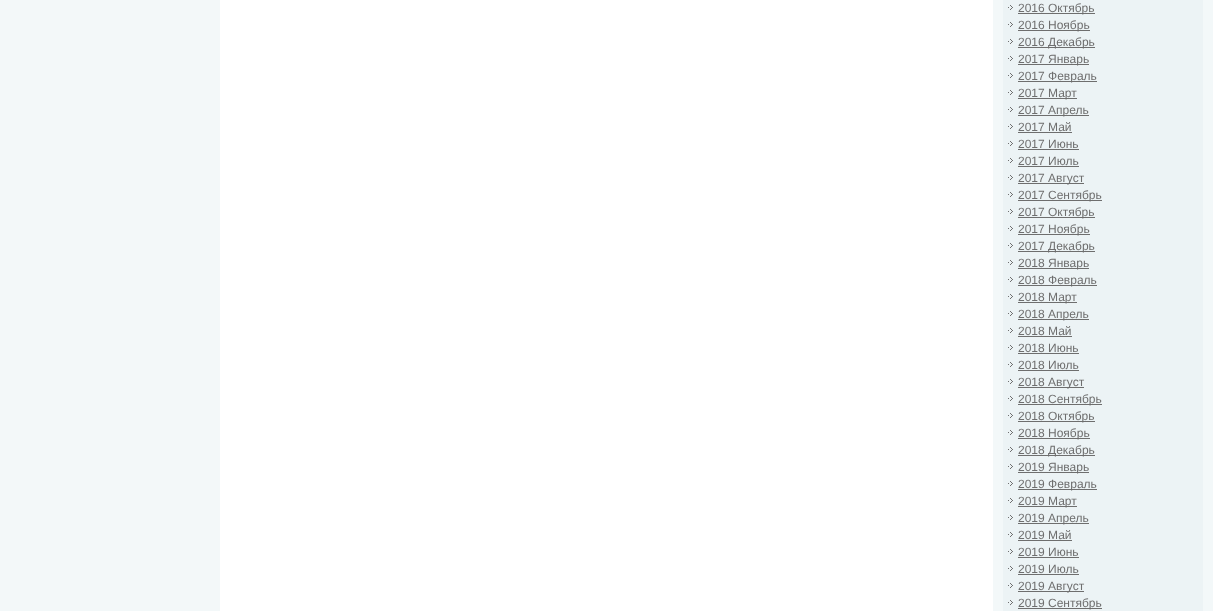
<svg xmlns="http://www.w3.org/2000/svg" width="1213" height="611">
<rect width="100%" height="100%" fill="#f3f8f9"/>
<rect x="220" width="773" height="611" fill="#fff"/>
<rect x="1003" width="200" height="611" fill="#ecf3f5"/>
<image x="1008" y="5" width="5" height="5" href="media/1.png"/>
<rect x="1018" y="13" width="77" height="1" fill="#6e6e6e"/>
<text x="1018" y="12" style="font-family:Liberation Sans;font-size:12px;fill:#6e6e6e">2016 Октябрь</text>
<image x="1008" y="22" width="5" height="5" href="media/1.png"/>
<rect x="1018" y="30" width="72" height="1" fill="#6e6e6e"/>
<text x="1018" y="29" style="font-family:Liberation Sans;font-size:12px;fill:#6e6e6e">2016 Ноябрь</text>
<image x="1008" y="39" width="5" height="5" href="media/1.png"/>
<rect x="1018" y="47" width="77" height="1" fill="#6e6e6e"/>
<text x="1018" y="46" style="font-family:Liberation Sans;font-size:12px;fill:#6e6e6e">2016 Декабрь</text>
<image x="1008" y="56" width="5" height="5" href="media/1.png"/>
<rect x="1018" y="64" width="71" height="1" fill="#6e6e6e"/>
<text x="1018" y="63" style="font-family:Liberation Sans;font-size:12px;fill:#6e6e6e">2017 Январь</text>
<image x="1008" y="73" width="5" height="5" href="media/1.png"/>
<rect x="1018" y="81" width="79" height="1" fill="#6e6e6e"/>
<text x="1018" y="80" style="font-family:Liberation Sans;font-size:12px;fill:#6e6e6e">2017 Февраль</text>
<image x="1008" y="90" width="5" height="5" href="media/1.png"/>
<rect x="1018" y="98" width="59" height="1" fill="#6e6e6e"/>
<text x="1018" y="97" style="font-family:Liberation Sans;font-size:12px;fill:#6e6e6e">2017 Март</text>
<image x="1008" y="107" width="5" height="5" href="media/1.png"/>
<rect x="1018" y="115" width="71" height="1" fill="#6e6e6e"/>
<text x="1018" y="114" style="font-family:Liberation Sans;font-size:12px;fill:#6e6e6e">2017 Апрель</text>
<image x="1008" y="124" width="5" height="5" href="media/1.png"/>
<text x="1018" y="131" style="font-family:Liberation Sans;font-size:12px;fill:#6e6e6e">2017 Май</text>
<rect x="1018" y="132" width="54" height="1" fill="#6e6e6e"/>
<image x="1008" y="141" width="5" height="5" href="media/1.png"/>
<text x="1018" y="148" style="font-family:Liberation Sans;font-size:12px;fill:#6e6e6e">2017 Июнь</text>
<rect x="1018" y="149" width="61" height="1" fill="#6e6e6e"/>
<image x="1008" y="158" width="5" height="5" href="media/1.png"/>
<text x="1018" y="165" style="font-family:Liberation Sans;font-size:12px;fill:#6e6e6e">2017 Июль</text>
<rect x="1018" y="166" width="61" height="1" fill="#6e6e6e"/>
<image x="1008" y="175" width="5" height="5" href="media/1.png"/>
<rect x="1018" y="183" width="66" height="1" fill="#6e6e6e"/>
<text x="1018" y="182" style="font-family:Liberation Sans;font-size:12px;fill:#6e6e6e">2017 Август</text>
<image x="1008" y="192" width="5" height="5" href="media/1.png"/>
<rect x="1018" y="200" width="84" height="1" fill="#6e6e6e"/>
<text x="1018" y="199" style="font-family:Liberation Sans;font-size:12px;fill:#6e6e6e">2017 Сентябрь</text>
<image x="1008" y="209" width="5" height="5" href="media/1.png"/>
<rect x="1018" y="217" width="77" height="1" fill="#6e6e6e"/>
<text x="1018" y="216" style="font-family:Liberation Sans;font-size:12px;fill:#6e6e6e">2017 Октябрь</text>
<image x="1008" y="226" width="5" height="5" href="media/1.png"/>
<rect x="1018" y="234" width="72" height="1" fill="#6e6e6e"/>
<text x="1018" y="233" style="font-family:Liberation Sans;font-size:12px;fill:#6e6e6e">2017 Ноябрь</text>
<image x="1008" y="243" width="5" height="5" href="media/1.png"/>
<rect x="1018" y="251" width="77" height="1" fill="#6e6e6e"/>
<text x="1018" y="250" style="font-family:Liberation Sans;font-size:12px;fill:#6e6e6e">2017 Декабрь</text>
<image x="1008" y="260" width="5" height="5" href="media/1.png"/>
<rect x="1018" y="268" width="71" height="1" fill="#6e6e6e"/>
<text x="1018" y="267" style="font-family:Liberation Sans;font-size:12px;fill:#6e6e6e">2018 Январь</text>
<image x="1008" y="277" width="5" height="5" href="media/1.png"/>
<rect x="1018" y="285" width="79" height="1" fill="#6e6e6e"/>
<text x="1018" y="284" style="font-family:Liberation Sans;font-size:12px;fill:#6e6e6e">2018 Февраль</text>
<image x="1008" y="294" width="5" height="5" href="media/1.png"/>
<rect x="1018" y="302" width="59" height="1" fill="#6e6e6e"/>
<text x="1018" y="301" style="font-family:Liberation Sans;font-size:12px;fill:#6e6e6e">2018 Март</text>
<image x="1008" y="311" width="5" height="5" href="media/1.png"/>
<rect x="1018" y="319" width="71" height="1" fill="#6e6e6e"/>
<text x="1018" y="318" style="font-family:Liberation Sans;font-size:12px;fill:#6e6e6e">2018 Апрель</text>
<image x="1008" y="328" width="5" height="5" href="media/1.png"/>
<text x="1018" y="335" style="font-family:Liberation Sans;font-size:12px;fill:#6e6e6e">2018 Май</text>
<rect x="1018" y="336" width="54" height="1" fill="#6e6e6e"/>
<image x="1008" y="345" width="5" height="5" href="media/1.png"/>
<text x="1018" y="352" style="font-family:Liberation Sans;font-size:12px;fill:#6e6e6e">2018 Июнь</text>
<rect x="1018" y="353" width="61" height="1" fill="#6e6e6e"/>
<image x="1008" y="362" width="5" height="5" href="media/1.png"/>
<text x="1018" y="369" style="font-family:Liberation Sans;font-size:12px;fill:#6e6e6e">2018 Июль</text>
<rect x="1018" y="370" width="61" height="1" fill="#6e6e6e"/>
<image x="1008" y="379" width="5" height="5" href="media/1.png"/>
<rect x="1018" y="387" width="66" height="1" fill="#6e6e6e"/>
<text x="1018" y="386" style="font-family:Liberation Sans;font-size:12px;fill:#6e6e6e">2018 Август</text>
<image x="1008" y="396" width="5" height="5" href="media/1.png"/>
<rect x="1018" y="404" width="84" height="1" fill="#6e6e6e"/>
<text x="1018" y="403" style="font-family:Liberation Sans;font-size:12px;fill:#6e6e6e">2018 Сентябрь</text>
<image x="1008" y="413" width="5" height="5" href="media/1.png"/>
<rect x="1018" y="421" width="77" height="1" fill="#6e6e6e"/>
<text x="1018" y="420" style="font-family:Liberation Sans;font-size:12px;fill:#6e6e6e">2018 Октябрь</text>
<image x="1008" y="430" width="5" height="5" href="media/1.png"/>
<rect x="1018" y="438" width="72" height="1" fill="#6e6e6e"/>
<text x="1018" y="437" style="font-family:Liberation Sans;font-size:12px;fill:#6e6e6e">2018 Ноябрь</text>
<image x="1008" y="447" width="5" height="5" href="media/1.png"/>
<rect x="1018" y="455" width="77" height="1" fill="#6e6e6e"/>
<text x="1018" y="454" style="font-family:Liberation Sans;font-size:12px;fill:#6e6e6e">2018 Декабрь</text>
<image x="1008" y="464" width="5" height="5" href="media/1.png"/>
<rect x="1018" y="472" width="71" height="1" fill="#6e6e6e"/>
<text x="1018" y="471" style="font-family:Liberation Sans;font-size:12px;fill:#6e6e6e">2019 Январь</text>
<image x="1008" y="481" width="5" height="5" href="media/1.png"/>
<rect x="1018" y="489" width="79" height="1" fill="#6e6e6e"/>
<text x="1018" y="488" style="font-family:Liberation Sans;font-size:12px;fill:#6e6e6e">2019 Февраль</text>
<image x="1008" y="498" width="5" height="5" href="media/1.png"/>
<rect x="1018" y="506" width="59" height="1" fill="#6e6e6e"/>
<text x="1018" y="505" style="font-family:Liberation Sans;font-size:12px;fill:#6e6e6e">2019 Март</text>
<image x="1008" y="515" width="5" height="5" href="media/1.png"/>
<rect x="1018" y="523" width="71" height="1" fill="#6e6e6e"/>
<text x="1018" y="522" style="font-family:Liberation Sans;font-size:12px;fill:#6e6e6e">2019 Апрель</text>
<image x="1008" y="532" width="5" height="5" href="media/1.png"/>
<text x="1018" y="539" style="font-family:Liberation Sans;font-size:12px;fill:#6e6e6e">2019 Май</text>
<rect x="1018" y="540" width="54" height="1" fill="#6e6e6e"/>
<image x="1008" y="549" width="5" height="5" href="media/1.png"/>
<text x="1018" y="556" style="font-family:Liberation Sans;font-size:12px;fill:#6e6e6e">2019 Июнь</text>
<rect x="1018" y="557" width="61" height="1" fill="#6e6e6e"/>
<image x="1008" y="566" width="5" height="5" href="media/1.png"/>
<text x="1018" y="573" style="font-family:Liberation Sans;font-size:12px;fill:#6e6e6e">2019 Июль</text>
<rect x="1018" y="574" width="61" height="1" fill="#6e6e6e"/>
<image x="1008" y="583" width="5" height="5" href="media/1.png"/>
<rect x="1018" y="591" width="66" height="1" fill="#6e6e6e"/>
<text x="1018" y="590" style="font-family:Liberation Sans;font-size:12px;fill:#6e6e6e">2019 Август</text>
<image x="1008" y="600" width="5" height="5" href="media/1.png"/>
<rect x="1018" y="608" width="84" height="1" fill="#6e6e6e"/>
<text x="1018" y="607" style="font-family:Liberation Sans;font-size:12px;fill:#6e6e6e">2019 Сентябрь</text>
</svg>
